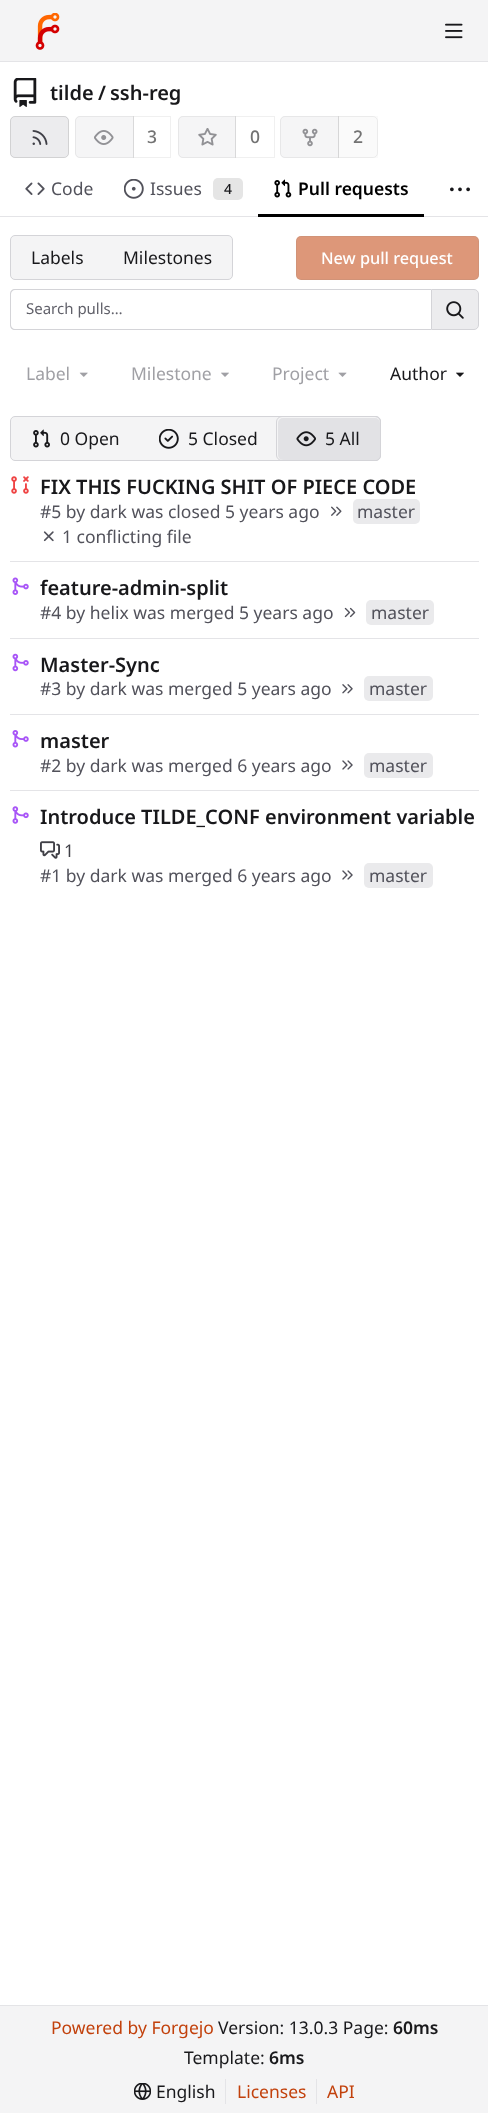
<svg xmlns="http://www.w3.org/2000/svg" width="488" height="2113">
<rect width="100%" height="100%" fill="#fff"/>
<rect width="488" height="61" fill="#f4f4f5"/>
<rect y="61" width="488" height="1" fill="#e4e4e7"/>
<image x="35" y="13" width="25" height="37" href="media/1.png"/>
<image x="445" y="23" width="18" height="16" href="media/2.png"/>
<image x="13" y="78" width="24" height="29" href="media/3.png"/>
<text x="50" y="100" style="font-family:Noto Sans;font-size:20px;font-weight:600;fill:#18181b">tilde</text>
<text x="98" y="100" style="font-family:Noto Sans;font-size:20px;font-weight:600;fill:#18181b">/</text>
<text x="110" y="100" style="font-family:Noto Sans;font-size:20px;font-weight:600;fill:#18181b">ssh-reg</text>
<rect x="10" y="116" width="59" height="42" rx="5" fill="#ececee"/>
<rect x="10.5" y="116.5" width="58" height="41" rx="4.5" fill="none" stroke="#0000001c"/>
<image x="32" y="130" width="16" height="15" href="media/4.png"/>
<path d="M80 116h54v42h-54c-3 0-5-2-5-5v-32c0-3 2-5 5-5z" fill="#f5f5f6"/>
<path d="M80 116.5h53.5v41h-53.5c-2.5 0-4.5-2-4.5-4.5v-32c0-2.5 2-4.5 4.5-4.5z" fill="none" stroke="#7373731c"/>
<image x="94" y="130" width="20" height="15" href="media/5.png"/>
<rect x="133.5" y="116.5" width="37" height="41" fill="none" stroke="#0000000f"/>
<text x="147" y="143" style="font-family:Noto Sans;font-size:17.5px;font-weight:500;fill:#737373">3</text>
<path d="M183 116h53v42h-53c-3 0-5-2-5-5v-32c0-3 2-5 5-5z" fill="#f5f5f6"/>
<path d="M183 116.5h52.5v41h-52.5c-2.5 0-4.5-2-4.5-4.5v-32c0-2.5 2-4.5 4.5-4.5z" fill="none" stroke="#7373731c"/>
<image x="198" y="128" width="19" height="18" href="media/6.png"/>
<rect x="235.5" y="116.5" width="39" height="41" fill="none" stroke="#0000000f"/>
<text x="250" y="143" style="font-family:Noto Sans;font-size:17.5px;font-weight:500;fill:#737373">0</text>
<path d="M285 116h54v42h-54c-3 0-5-2-5-5v-32c0-3 2-5 5-5z" fill="#f5f5f6"/>
<path d="M285 116.5h53.5v41h-53.5c-2.5 0-4.5-2-4.5-4.5v-32c0-2.5 2-4.5 4.5-4.5z" fill="none" stroke="#7373731c"/>
<image x="302" y="128" width="16" height="19" href="media/7.png"/>
<rect x="338" y="116" width="40" height="42" fill="#7373730a"/>
<path d="M338.5 116.5h34.5c2.5 0 4.5 2 4.5 4.5v32c0 2.5-2 4.5-4.5 4.5h-34.5z" fill="none" stroke="#7373731c"/>
<text x="353" y="143" style="font-family:Noto Sans;font-size:17.5px;font-weight:500;fill:#737373">2</text>
<image x="25" y="182" width="20" height="13" href="media/8.png"/>
<text x="51" y="195" style="font-family:Noto Sans;font-size:17.5px;fill:#52525b">Code</text>
<image x="124" y="179" width="20" height="20" href="media/9.png"/>
<text x="150" y="195" style="font-family:Noto Sans;font-size:17.5px;fill:#52525b">Issues</text>
<rect x="213" y="178" width="30" height="22" rx="5" fill="#e5e5e5"/>
<text x="224" y="194" style="font-family:Noto Sans;font-size:14px;font-weight:500;fill:#18181b">4</text>
<rect y="216" width="488" height="1" fill="#e4e4e7"/>
<rect x="258" y="214" width="166" height="3" fill="#000"/>
<image x="274" y="179" width="18" height="19" href="media/10.png"/>
<text x="298" y="195" style="font-family:Noto Sans;font-size:17.5px;font-weight:600;fill:#000">Pull requests</text>
<image x="450" y="187" width="20" height="5" href="media/11.png"/>
<rect x="10.5" y="235.5" width="222" height="44" rx="4.5" fill="#f4f4f5" stroke="#d4d4d8"/>
<text x="31" y="264" style="font-family:Noto Sans;font-size:17.5px;fill:#18181b">Labels</text>
<text x="123" y="264" style="font-family:Noto Sans;font-size:17.5px;fill:#18181b">Milestones</text>
<rect x="296" y="236" width="183" height="44" rx="5" fill="#dd9779"/>
<rect x="296.5" y="236.5" width="182" height="43" rx="4.5" fill="none" stroke="#7373731c"/>
<text x="321" y="264" style="font-family:Noto Sans;font-size:16.25px;font-weight:500;fill:#fff">New pull request</text>
<path d="M15 289h416v41h-416c-3 0-5-2-5-5v-31c0-3 2-5 5-5zm0 1h416v39h-416c-2 0-4-2-4-4v-31c0-2 2-4 4-4z" fill="#d4d4d8" fill-rule="evenodd"/>
<text x="26" y="314" style="font-family:Noto Sans;font-size:15px;fill:#61616a">Search pulls…</text>
<path d="M431.5 289.5h42.5c2.5 0 4.5 2 4.5 4.5v31c0 2.5-2 4.5-4.5 4.5h-42.5z" fill="#ececee" stroke="#d4d4d8"/>
<image x="446" y="301" width="18" height="18" href="media/12.png"/>
<text x="26" y="380" style="font-family:Noto Sans;font-size:17.5px;fill:#a0a0a5">Label</text>
<image x="79" y="372" width="9" height="5" href="media/13.png"/>
<text x="131" y="380" style="font-family:Noto Sans;font-size:17.5px;fill:#a0a0a5">Milestone</text>
<image x="221" y="372" width="8" height="5" href="media/14.png"/>
<text x="272" y="380" style="font-family:Noto Sans;font-size:17.5px;fill:#a0a0a5">Project</text>
<image x="338" y="372" width="9" height="5" href="media/15.png"/>
<text x="390" y="380" style="font-family:Noto Sans;font-size:17.5px;fill:#18181b">Author</text>
<image x="456" y="372" width="8" height="5" href="media/16.png"/>
<rect x="10.5" y="416.5" width="370" height="44" rx="4.5" fill="#f4f4f5" stroke="#d4d4d8"/>
<image x="33" y="429" width="17" height="19" href="media/17.png"/>
<text x="60" y="445" style="font-family:Noto Sans;font-size:17.5px;fill:#18181b">0 Open</text>
<image x="159" y="429" width="20" height="20" href="media/18.png"/>
<text x="188" y="445" style="font-family:Noto Sans;font-size:17.5px;fill:#18181b">5 Closed</text>
<rect x="278" y="418" width="102" height="42" rx="5" fill="#e2e2e5"/>
<rect x="276.5" y="416.5" width="104" height="44" rx="5.5" fill="none" stroke="#d4d4d8"/>
<image x="296" y="431" width="20" height="16" href="media/19.png"/>
<text x="325" y="445" style="font-family:Noto Sans;font-size:17.5px;fill:#18181b">5 All</text>
<image x="11" y="476" width="18" height="18" href="media/20.png"/>
<text x="40" y="494" style="font-family:Noto Sans;font-size:20px;font-weight:600;fill:#18181b">FIX THIS FUCKING SHIT OF PIECE CODE</text>
<text x="40" y="518" style="font-family:Noto Sans;font-size:17.5px;fill:#52525b">#5 by dark was closed 5 years ago</text>
<image x="331" y="506" width="11" height="10" href="media/21.png"/>
<rect x="353" y="499" width="67" height="25" rx="5" fill="#eaeaec"/>
<text x="357" y="518" style="font-family:Noto Sans;font-size:17.5px;fill:#52525b">master</text>
<image x="43" y="531" width="11" height="11" href="media/22.png"/>
<text x="62" y="543" style="font-family:Noto Sans;font-size:17.5px;fill:#52525b">1 conflicting file</text>
<rect x="10" y="561" width="469" height="1" fill="#e4e4e7"/>
<image x="12" y="577" width="17" height="18" href="media/23.png"/>
<text x="40" y="595" style="font-family:Noto Sans;font-size:20px;font-weight:600;fill:#18181b">feature-admin-split</text>
<text x="40" y="619" style="font-family:Noto Sans;font-size:17.5px;fill:#52525b">#4 by helix was merged 5 years ago</text>
<image x="344" y="607" width="12" height="11" href="media/24.png"/>
<rect x="366" y="600" width="68" height="25" rx="5" fill="#eaeaec"/>
<text x="371" y="619" style="font-family:Noto Sans;font-size:17.5px;fill:#52525b">master</text>
<rect x="10" y="638" width="469" height="1" fill="#e4e4e7"/>
<image x="12" y="653" width="17" height="19" href="media/25.png"/>
<text x="40" y="672" style="font-family:Noto Sans;font-size:20px;font-weight:600;fill:#18181b">Master-Sync</text>
<text x="40" y="695" style="font-family:Noto Sans;font-size:17.5px;fill:#52525b">#3 by dark was merged 5 years ago</text>
<image x="342" y="684" width="11" height="10" href="media/26.png"/>
<rect x="364" y="676" width="69" height="25" rx="5" fill="#eaeaec"/>
<text x="369" y="695" style="font-family:Noto Sans;font-size:17.5px;fill:#52525b">master</text>
<rect x="10" y="714" width="469" height="1" fill="#e4e4e7"/>
<image x="12" y="730" width="17" height="18" href="media/27.png"/>
<text x="40" y="748" style="font-family:Noto Sans;font-size:20px;font-weight:600;fill:#18181b">master</text>
<text x="40" y="772" style="font-family:Noto Sans;font-size:17.5px;fill:#52525b">#2 by dark was merged 6 years ago</text>
<image x="342" y="760" width="11" height="10" href="media/28.png"/>
<rect x="364" y="753" width="69" height="25" rx="5" fill="#eaeaec"/>
<text x="369" y="772" style="font-family:Noto Sans;font-size:17.5px;fill:#52525b">master</text>
<rect x="10" y="790" width="469" height="1" fill="#e4e4e7"/>
<image x="12" y="806" width="17" height="18" href="media/29.png"/>
<text x="40" y="824" style="font-family:Noto Sans;font-size:20px;font-weight:600;fill:#18181b">Introduce TILDE_CONF environment variable</text>
<image x="40" y="841" width="20" height="18" href="media/30.png"/>
<text x="64" y="857" style="font-family:Noto Sans;font-size:17.5px;fill:#3f3f46">1</text>
<text x="40" y="882" style="font-family:Noto Sans;font-size:17.5px;fill:#52525b">#1 by dark was merged 6 years ago</text>
<image x="342" y="870" width="11" height="10" href="media/28.png"/>
<rect x="364" y="863" width="69" height="25" rx="5" fill="#eaeaec"/>
<text x="369" y="882" style="font-family:Noto Sans;font-size:17.5px;fill:#52525b">master</text>
<rect y="2006" width="488" height="107" fill="#f4f4f5"/>
<rect y="2005" width="488" height="1" fill="#e4e4e7"/>
<text x="51" y="2034" style="font-family:Noto Sans;font-size:17.5px;fill:#c2410c">Powered by Forgejo</text>
<text x="218" y="2034" style="font-family:Noto Sans;font-size:17.5px;fill:#18181b">Version: 13.0.3 Page:</text>
<text x="393" y="2034" style="font-family:Noto Sans;font-size:17.5px;font-weight:600;fill:#18181b">60ms</text>
<text x="184" y="2064" style="font-family:Noto Sans;font-size:17.5px;fill:#18181b">Template:</text>
<text x="269" y="2064" style="font-family:Noto Sans;font-size:17.5px;font-weight:600;fill:#18181b">6ms</text>
<image x="134" y="2083" width="17" height="17" href="media/31.png"/>
<text x="156" y="2098" style="font-family:Noto Sans;font-size:17.5px;fill:#18181b">English</text>
<rect x="225" y="2079" width="1" height="25" fill="#e4e4e7"/>
<text x="237" y="2098" style="font-family:Noto Sans;font-size:17.5px;fill:#c2410c">Licenses</text>
<rect x="316" y="2079" width="1" height="25" fill="#e4e4e7"/>
<text x="327" y="2098" style="font-family:Noto Sans;font-size:17.5px;fill:#c2410c">API</text>
</svg>
